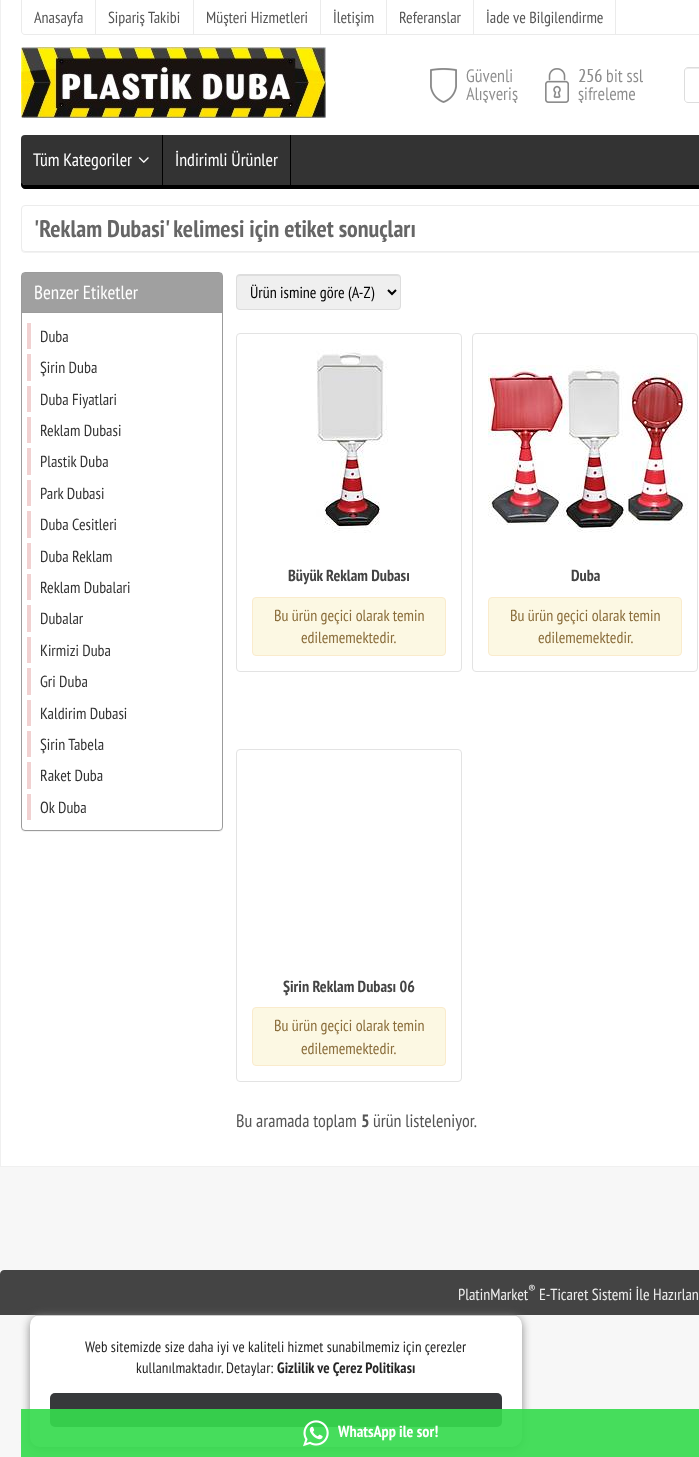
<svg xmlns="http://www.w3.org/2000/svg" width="699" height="1457">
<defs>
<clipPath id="clip1"><path d="M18 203h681v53h-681zm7 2h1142c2 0 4 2 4 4v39c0 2-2 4-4 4h-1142c-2 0-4-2-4-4v-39c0-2 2-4 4-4z" clip-rule="evenodd"/></clipPath>
<clipPath id="clip2"><path d="M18 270h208v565h-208zm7 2h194c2 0 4 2 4 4v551c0 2-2 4-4 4h-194c-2 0-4-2-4-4v-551c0-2 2-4 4-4z" clip-rule="evenodd"/></clipPath>
</defs>
<rect width="100%" height="100%" fill="#f7f7f7"/>
<rect x="1" width="698" height="1166" fill="#fff"/>
<rect width="1" height="1166" fill="#f0f0f0"/>
<path d="M21 0h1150v31c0 2-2 4-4 4h-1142c-2 0-4-2-4-4zm1 0h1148v31c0 2-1 3-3 3h-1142c-2 0-3-1-3-3z" fill="#ebebeb" fill-rule="evenodd"/>
<rect x="95" width="1" height="34" fill="#ebebeb"/>
<text x="34" y="23" style="font-family:PT Sans Narrow;font-size:16px;fill:#555">Anasayfa</text>
<rect x="193" width="1" height="34" fill="#ebebeb"/>
<text x="108" y="23" style="font-family:PT Sans Narrow;font-size:16px;fill:#555">Sipariş Takibi</text>
<rect x="320" width="1" height="34" fill="#ebebeb"/>
<text x="206" y="23" style="font-family:PT Sans Narrow;font-size:16px;fill:#555">Müşteri Hizmetleri</text>
<rect x="386" width="1" height="34" fill="#ebebeb"/>
<text x="333" y="23" style="font-family:PT Sans Narrow;font-size:16px;fill:#555">İletişim</text>
<rect x="473" width="1" height="34" fill="#ebebeb"/>
<text x="399" y="23" style="font-family:PT Sans Narrow;font-size:16px;fill:#555">Referanslar</text>
<rect x="615" width="1" height="34" fill="#ebebeb"/>
<text x="486" y="23" style="font-family:PT Sans Narrow;font-size:16px;fill:#555">İade ve Bilgilendirme</text>
<image x="21" y="47" width="305" height="71" href="media/1.png"/>
<image x="430" y="68" width="213" height="35" href="media/2.png"/>
<path d="M688 69h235v-1h-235c-2 0-3 2-3 4c0-2 1-3 3-3z" fill="#ececec"/>
<path d="M688 67.5h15.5v35h-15.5c-2 0-3.5-1.5-3.5-3.5v-28c0-2 1.5-3.5 3.5-3.5z" fill="none" stroke="#ddd"/>
<rect x="21" y="135" width="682" height="50" rx="4" fill="#333"/>
<path d="M21 181v4c0 2 2 4 4 4h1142c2 0 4-2 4-4v-4c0 2-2 4-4 4h-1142c-2 0-4-2-4-4z" fill="#000"/>
<rect x="162" y="135" width="1" height="50" fill="#000"/>
<text x="33" y="166" style="font-family:PT Sans Narrow;font-size:18px;fill:#fff">Tüm Kategoriler</text>
<image x="138" y="157" width="11" height="6" href="media/3.png"/>
<rect x="290" y="135" width="1" height="50" fill="#000"/>
<text x="175" y="166" style="font-family:PT Sans Narrow;font-size:18px;fill:#fff">İndirimli Ürünler</text>
<path d="M4 1270h695c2 0 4 2 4 4v41h-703v-41c0-2 2-4 4-4z" fill="#444"/>
<rect x="30" y="1317" width="492" height="132" rx="10" fill="#888" filter="blur(5px)"/>
<rect x="30" y="1315" width="492" height="132" rx="10" fill="#fff"/>
<rect x="35" y="1315" width="482" height="1" fill="#ccc"/>
<text x="85" y="1352" style="font-family:PT Sans Narrow;font-size:15px;letter-spacing:0.1px;fill:#262626">Web sitemizde size daha iyi ve kaliteli hizmet sunabilmemiz için çerezler</text>
<text x="136" y="1373" style="font-family:PT Sans Narrow;font-size:15px;letter-spacing:0.1px;fill:#262626">kullanılmaktadır. Detaylar:</text>
<text x="277" y="1373" style="font-family:PT Sans Narrow;font-size:15px;font-weight:bold;letter-spacing:0.1px;fill:#262626">Gizlilik ve Çerez Politikası</text>
<rect x="50" y="1393" width="452" height="34" rx="5" fill="#37393b"/>
<g clip-path="url(#clip1)">
<rect x="21" y="206" width="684" height="47" rx="4" fill="#0000000d" filter="blur(0.5px)"/>
</g>
<rect x="21.5" y="205.5" width="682" height="46" rx="3.5" fill="none" stroke="#ececec"/>
<text x="34" y="237" style="font-family:PT Sans Narrow;font-size:24px;font-weight:bold;fill:#666">'Reklam Dubasi' kelimesi için etiket sonuçları</text>
<g clip-path="url(#clip2)">
<rect x="21" y="273" width="202" height="559" rx="4" fill="#0000000d" filter="blur(0.5px)"/>
</g>
<rect x="21.5" y="272.5" width="201" height="558" rx="3.5" fill="none" stroke="#9b9b9b"/>
<rect x="22" y="273" width="200" height="39" fill="#a0a0a0"/>
<rect x="22" y="312" width="200" height="1" fill="#9b9b9b"/>
<text x="34" y="299" style="font-family:PT Sans Narrow;font-size:19px;fill:#fff">Benzer Etiketler</text>
<rect x="27" y="323" width="4" height="26" fill="#f1d1d1"/>
<text x="40" y="342" style="font-family:PT Sans Narrow;font-size:16px;fill:#333">Duba</text>
<rect x="27" y="354" width="4" height="27" fill="#f1d1d1"/>
<text x="40" y="373" style="font-family:PT Sans Narrow;font-size:16px;fill:#333">Şirin Duba</text>
<rect x="27" y="386" width="4" height="26" fill="#f1d1d1"/>
<text x="40" y="405" style="font-family:PT Sans Narrow;font-size:16px;fill:#333">Duba Fiyatlari</text>
<rect x="27" y="417" width="4" height="26" fill="#f1d1d1"/>
<text x="40" y="436" style="font-family:PT Sans Narrow;font-size:16px;fill:#333">Reklam Dubasi</text>
<rect x="27" y="448" width="4" height="27" fill="#f1d1d1"/>
<text x="40" y="467" style="font-family:PT Sans Narrow;font-size:16px;fill:#333">Plastik Duba</text>
<rect x="27" y="480" width="4" height="26" fill="#f1d1d1"/>
<text x="40" y="499" style="font-family:PT Sans Narrow;font-size:16px;fill:#333">Park Dubasi</text>
<rect x="27" y="511" width="4" height="27" fill="#f1d1d1"/>
<text x="40" y="530" style="font-family:PT Sans Narrow;font-size:16px;fill:#333">Duba Cesitleri</text>
<rect x="27" y="543" width="4" height="26" fill="#f1d1d1"/>
<text x="40" y="562" style="font-family:PT Sans Narrow;font-size:16px;fill:#333">Duba Reklam</text>
<rect x="27" y="574" width="4" height="26" fill="#f1d1d1"/>
<text x="40" y="593" style="font-family:PT Sans Narrow;font-size:16px;fill:#333">Reklam Dubalari</text>
<rect x="27" y="605" width="4" height="27" fill="#f1d1d1"/>
<text x="40" y="624" style="font-family:PT Sans Narrow;font-size:16px;fill:#333">Dubalar</text>
<rect x="27" y="637" width="4" height="26" fill="#f1d1d1"/>
<text x="40" y="656" style="font-family:PT Sans Narrow;font-size:16px;fill:#333">Kirmizi Duba</text>
<rect x="27" y="668" width="4" height="27" fill="#f1d1d1"/>
<text x="40" y="687" style="font-family:PT Sans Narrow;font-size:16px;fill:#333">Gri Duba</text>
<rect x="27" y="700" width="4" height="26" fill="#f1d1d1"/>
<text x="40" y="719" style="font-family:PT Sans Narrow;font-size:16px;fill:#333">Kaldirim Dubasi</text>
<rect x="27" y="731" width="4" height="26" fill="#f1d1d1"/>
<text x="40" y="750" style="font-family:PT Sans Narrow;font-size:16px;fill:#333">Şirin Tabela</text>
<rect x="27" y="762" width="4" height="27" fill="#f1d1d1"/>
<text x="40" y="781" style="font-family:PT Sans Narrow;font-size:16px;fill:#333">Raket Duba</text>
<rect x="27" y="794" width="4" height="26" fill="#f1d1d1"/>
<text x="40" y="813" style="font-family:PT Sans Narrow;font-size:16px;fill:#333">Ok Duba</text>
<rect x="236" y="274" width="165" height="36" rx="4" fill="#efefef"/>
<path d="M240 276h157c2 0 3 1 3 3c0-2-1-4-3-4h-157c-2 0-3 2-3 4c0-2 1-3 3-3z" fill="#ddd"/>
<rect x="236.5" y="274.5" width="164" height="35" rx="3.5" fill="none" stroke="#ddd"/>
<path d="M388 290l4 4l4-4" fill="none" stroke="#000" stroke-width="2"/>
<text x="250" y="298" style="font-family:PT Sans Narrow;font-size:16px;fill:#000">Ürün ismine göre (A-Z)</text>
<rect x="236.5" y="333.5" width="225" height="338" rx="3.5" fill="none" stroke="#e3e3e3"/>
<image x="316" y="349" width="72" height="184" href="media/4.png"/>
<text x="288" y="581" style="font-family:PT Sans Narrow;font-size:16px;font-weight:bold;fill:#444">Büyük Reklam Dubası</text>
<rect x="252.5" y="597.5" width="193" height="58" rx="3.5" fill="#fcf8e3" stroke="#faebcc"/>
<text x="274" y="621" style="font-family:PT Sans Narrow;font-size:16px;fill:#8a6d3b">Bu ürün geçici olarak temin</text>
<text x="301" y="643" style="font-family:PT Sans Narrow;font-size:16px;fill:#8a6d3b">edilememektedir.</text>
<rect x="472.5" y="333.5" width="225" height="338" rx="3.5" fill="none" stroke="#e3e3e3"/>
<image x="488" y="365" width="200" height="168" href="media/5.png"/>
<text x="571" y="581" style="font-family:PT Sans Narrow;font-size:16px;font-weight:bold;fill:#444">Duba</text>
<rect x="488.5" y="597.5" width="193" height="58" rx="3.5" fill="#fcf8e3" stroke="#faebcc"/>
<text x="510" y="621" style="font-family:PT Sans Narrow;font-size:16px;fill:#8a6d3b">Bu ürün geçici olarak temin</text>
<text x="538" y="643" style="font-family:PT Sans Narrow;font-size:16px;fill:#8a6d3b">edilememektedir.</text>
<rect x="236.5" y="749.5" width="225" height="332" rx="3.5" fill="none" stroke="#e3e3e3"/>
<text x="283" y="992" style="font-family:PT Sans Narrow;font-size:16px;font-weight:bold;fill:#444">Şirin Reklam Dubası 06</text>
<rect x="252.5" y="1007.5" width="193" height="58" rx="3.5" fill="#fcf8e3" stroke="#faebcc"/>
<text x="274" y="1031" style="font-family:PT Sans Narrow;font-size:16px;fill:#8a6d3b">Bu ürün geçici olarak temin</text>
<text x="301" y="1054" style="font-family:PT Sans Narrow;font-size:16px;fill:#8a6d3b">edilememektedir.</text>
<text x="236" y="1127" style="font-family:PT Sans Narrow;font-size:18px;fill:#555">Bu aramada toplam</text>
<text x="361" y="1127" style="font-family:PT Sans Narrow;font-size:18px;font-weight:bold;fill:#555">5</text>
<text x="373" y="1127" style="font-family:PT Sans Narrow;font-size:18px;fill:#555">ürün listeleniyor.</text>
<rect y="1166" width="699" height="1" fill="#f0f0f0"/>
<rect x="21" y="1409" width="678" height="48" fill="#36da4eeb"/>
<image x="303" y="1420" width="26" height="27" href="media/6.png"/>
<text x="338" y="1437" style="font-family:PT Sans Narrow;font-size:16px;font-weight:bold;fill:#fff">WhatsApp ile sor!</text>
<text x="458" y="1300" style="font-family:PT Sans Narrow;font-size:16px;fill:#eee">PlatinMarket</text>
<text x="528" y="1294" style="font-family:PT Sans Narrow;font-size:13px;fill:#eee">®</text>
<text x="539" y="1300" style="font-family:PT Sans Narrow;font-size:16px;fill:#eee">E-Ticaret Sistemi İle Hazırlan</text>
</svg>
